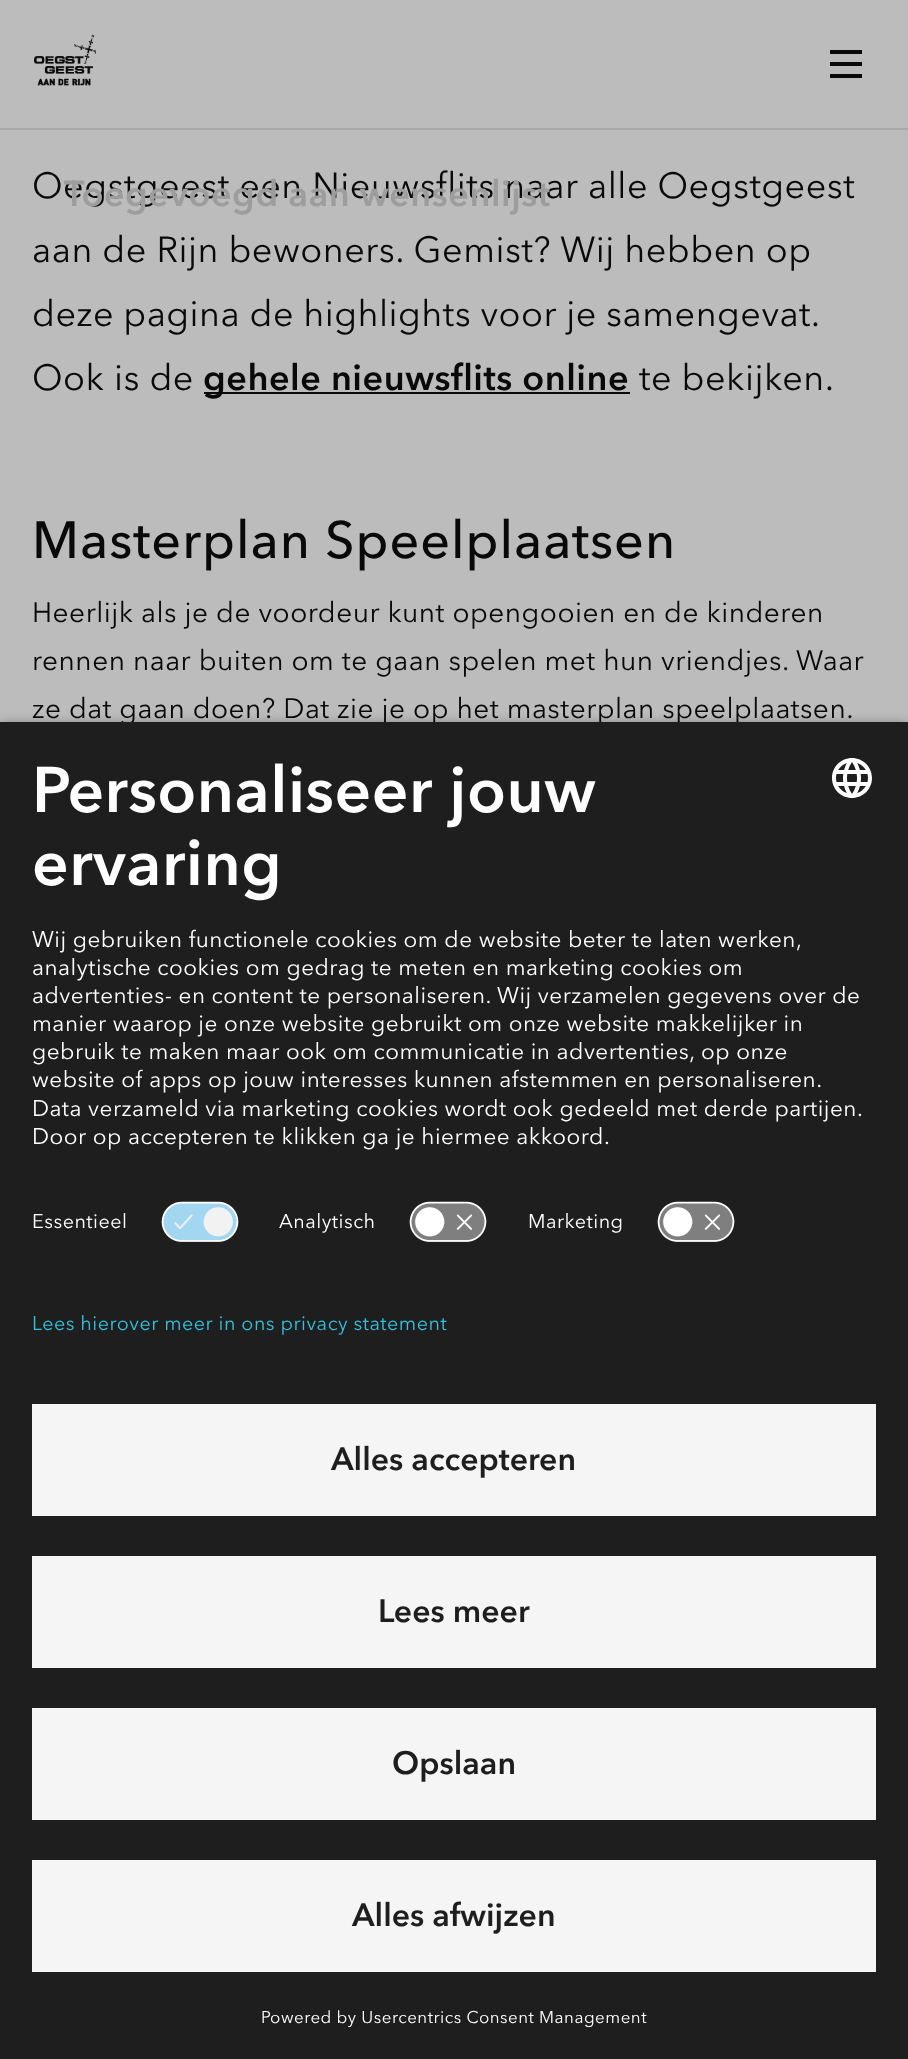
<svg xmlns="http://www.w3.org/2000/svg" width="908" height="2059">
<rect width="100%" height="100%" fill="#bcbcbc"/>
<rect y="128" width="908" height="2" fill="#aaa"/>
<image x="34" y="34" width="62" height="52" href="media/1.png"/>
<rect x="830" y="62" width="32" height="4" fill="#090909"/>
<rect x="830" y="50" width="32" height="4" fill="#090909"/>
<rect x="830" y="74" width="32" height="4" fill="#090909"/>
<text x="32" y="198" style="font-family:Avenir Next;font-size:36px;letter-spacing:0.5px;fill:#090909">Oegstgeest een Nieuwsflits naar alle Oegstgeest</text>
<text x="32" y="262" style="font-family:Avenir Next;font-size:36px;letter-spacing:0.5px;fill:#090909">aan de Rijn bewoners. Gemist? Wij hebben op</text>
<text x="32" y="326" word-spacing="-0.25" style="font-family:Avenir Next;font-size:36px;letter-spacing:0.5px;fill:#090909">deze pagina de highlights voor je samengevat.</text>
<text x="32" y="390" style="font-family:Avenir Next;font-size:36px;letter-spacing:0.5px;fill:#090909">Ook is de</text>
<rect x="204" y="392" width="426" height="2" fill="#090909"/>
<text x="203" y="390" style="font-family:Avenir Next;font-size:36px;font-weight:bold;letter-spacing:0.5px;fill:#090909">gehele nieuwsflits online</text>
<text x="639" y="390" style="font-family:Avenir Next;font-size:36px;letter-spacing:0.5px;fill:#090909">te bekijken.</text>
<text x="32" y="558" style="font-family:Avenir Next;font-size:52px;font-weight:500;letter-spacing:1px;fill:#090909">Masterplan Speelplaatsen</text>
<text x="32" y="622" style="font-family:Avenir Next;font-size:28px;letter-spacing:0.5px;fill:#090909">Heerlijk als je de voordeur kunt opengooien en de kinderen</text>
<text x="32" y="670" style="font-family:Avenir Next;font-size:28px;letter-spacing:0.5px;fill:#090909">rennen naar buiten om te gaan spelen met hun vriendjes. Waar</text>
<text x="32" y="718" style="font-family:Avenir Next;font-size:28px;letter-spacing:0.5px;fill:#090909">ze dat gaan doen? Dat zie je op het masterplan speelplaatsen.</text>
<text x="64" y="206" style="font-family:Avenir Next;font-size:36px;font-weight:bold;letter-spacing:0.5px;fill:#9d9d9d">Toegevoegd aan wensenlijst</text>
<rect y="728" width="908" height="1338" fill="#000000cc" filter="blur(7px)"/>
<rect y="722" width="908" height="1337" fill="#1e1e1e"/>
<text x="32" y="812" style="font-family:Avenir Next;font-size:64px;font-weight:bold;letter-spacing:0.5px;fill:#fff">Personaliseer jouw</text>
<text x="32" y="885" style="font-family:Avenir Next;font-size:64px;font-weight:bold;letter-spacing:0.5px;fill:#fff">ervaring</text>
<image x="832" y="758" width="40" height="40" href="media/2.png"/>
<text x="32" y="947" style="font-family:Avenir Next;font-size:22.5px;letter-spacing:0.5px;fill:#fff">Wij gebruiken functionele cookies om de website beter te laten werken,</text>
<text x="32" y="975" style="font-family:Avenir Next;font-size:22.5px;letter-spacing:0.5px;fill:#fff">analytische cookies om gedrag te meten en marketing cookies om</text>
<text x="32" y="1003" style="font-family:Avenir Next;font-size:22.5px;letter-spacing:0.5px;fill:#fff">advertenties- en content te personaliseren. Wij verzamelen gegevens over de</text>
<text x="32" y="1031" style="font-family:Avenir Next;font-size:22.5px;letter-spacing:0.5px;fill:#fff">manier waarop je onze website gebruikt om onze website makkelijker in</text>
<text x="32" y="1059" style="font-family:Avenir Next;font-size:22.5px;letter-spacing:0.5px;fill:#fff">gebruik te maken maar ook om communicatie in advertenties, op onze</text>
<text x="32" y="1087" style="font-family:Avenir Next;font-size:22.5px;letter-spacing:0.5px;fill:#fff">website of apps op jouw interesses kunnen afstemmen en personaliseren.</text>
<text x="32" y="1116" style="font-family:Avenir Next;font-size:22.5px;letter-spacing:0.5px;fill:#fff">Data verzameld via marketing cookies wordt ook gedeeld met derde partijen.</text>
<text x="32" y="1144" style="font-family:Avenir Next;font-size:22.5px;letter-spacing:0.5px;fill:#fff">Door op accepteren te klikken ga je hiermee akkoord.</text>
<text x="32" y="1228" style="font-family:Avenir Next;font-size:19.7px;letter-spacing:0.5px;fill:#fff">Essentieel</text>
<image x="161" y="1201" width="78" height="41" href="media/3.png"/>
<text x="279" y="1228" style="font-family:Avenir Next;font-size:19.7px;letter-spacing:0.5px;fill:#fff">Analytisch</text>
<image x="409" y="1201" width="78" height="41" href="media/4.png"/>
<text x="528" y="1228" style="font-family:Avenir Next;font-size:19.7px;letter-spacing:0.5px;fill:#fff">Marketing</text>
<image x="657" y="1201" width="78" height="41" href="media/4.png"/>
<text x="32" y="1330" style="font-family:Avenir Next;font-size:19.7px;letter-spacing:0.5px;fill:#32c1de">Lees hierover meer in ons privacy statement</text>
<rect x="32" y="1404" width="844" height="112" fill="#f5f5f5"/>
<text x="331" y="1470" style="font-family:Avenir Next;font-size:32px;font-weight:bold;fill:#1e1e1e">Alles accepteren</text>
<rect x="32" y="1556" width="844" height="112" fill="#f5f5f5"/>
<text x="378" y="1622" style="font-family:Avenir Next;font-size:32px;font-weight:bold;fill:#1e1e1e">Lees meer</text>
<rect x="32" y="1708" width="844" height="112" fill="#f5f5f5"/>
<text x="392" y="1774" style="font-family:Avenir Next;font-size:32px;font-weight:bold;fill:#1e1e1e">Opslaan</text>
<rect x="32" y="1860" width="844" height="112" fill="#f5f5f5"/>
<text x="352" y="1926" style="font-family:Avenir Next;font-size:32px;font-weight:bold;fill:#1e1e1e">Alles afwijzen</text>
<text x="261" y="2023" style="font-family:Avenir Next;font-size:16.9px;letter-spacing:0.5px;fill:#fff">Powered by Usercentrics Consent Management</text>
</svg>
